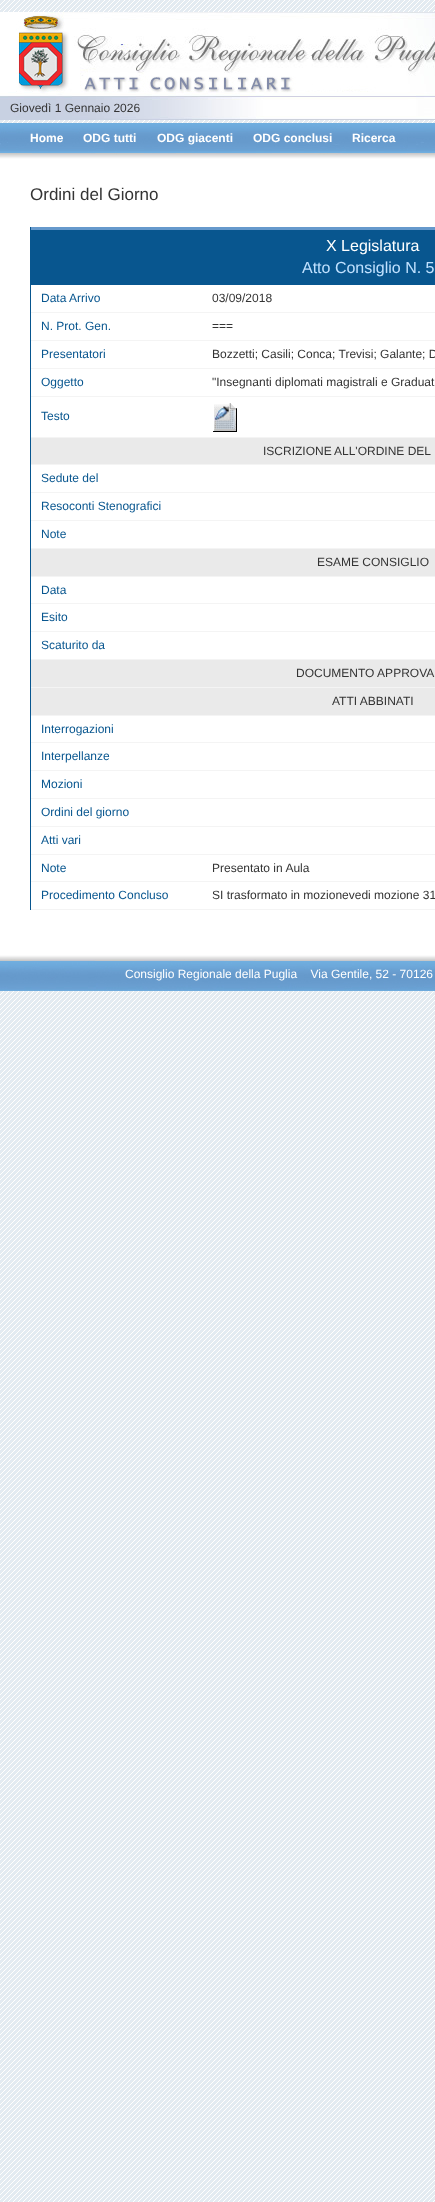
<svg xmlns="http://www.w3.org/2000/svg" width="435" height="2202">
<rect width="100%" height="100%" fill="#fff"/>
<image x="0" y="0" width="435" height="2202" href="media/1.png"/>
<image x="0" y="12" width="435" height="108" href="media/2.png"/>
<text x="10" y="112" style="font-family:Liberation Sans;font-size:12px;fill:#343434">Giovedì 1 Gennaio 2026</text>
<image x="0" y="123" width="435" height="40" href="media/3.png"/>
<text x="30" y="142" style="font-family:Liberation Sans;font-size:12px;font-weight:bold;fill:#fff">Home</text>
<text x="83" y="142" style="font-family:Liberation Sans;font-size:12px;font-weight:bold;fill:#fff">ODG tutti</text>
<text x="157" y="142" style="font-family:Liberation Sans;font-size:12px;font-weight:bold;fill:#fff">ODG giacenti</text>
<text x="253" y="142" style="font-family:Liberation Sans;font-size:12px;font-weight:bold;fill:#fff">ODG conclusi</text>
<text x="352" y="142" style="font-family:Liberation Sans;font-size:12px;font-weight:bold;fill:#fff">Ricerca</text>
<rect y="163" width="435" height="788" fill="#fff"/>
<text x="30" y="200" style="font-family:Liberation Sans;font-size:17px;fill:#343434">Ordini del Giorno</text>
<rect x="30" y="227" width="1" height="683" fill="#08568f"/>
<rect x="31" y="230" width="404" height="55" fill="#08568f"/>
<rect x="31" y="227" width="404" height="3" fill="#69c"/>
<text x="326" y="251" style="font-family:Liberation Sans;font-size:16px;fill:#fff">X Legislatura</text>
<text x="302" y="273" style="font-family:Liberation Sans;font-size:16px;fill:#c0e1ff">Atto Consiglio N. 5</text>
<rect x="31" y="312" width="404" height="1" fill="#f4f4f4"/>
<text x="41" y="302" style="font-family:Liberation Sans;font-size:12px;fill:#08568f">Data Arrivo</text>
<text x="212" y="302" style="font-family:Liberation Sans;font-size:12px;fill:#343434">03/09/2018</text>
<rect x="31" y="340" width="404" height="1" fill="#f4f4f4"/>
<text x="41" y="330" style="font-family:Liberation Sans;font-size:12px;fill:#08568f">N. Prot. Gen.</text>
<text x="212" y="330" style="font-family:Liberation Sans;font-size:12px;fill:#343434">===</text>
<rect x="31" y="368" width="404" height="1" fill="#f4f4f4"/>
<text x="41" y="358" style="font-family:Liberation Sans;font-size:12px;fill:#08568f">Presentatori</text>
<text x="212" y="358" style="font-family:Liberation Sans;font-size:12px;fill:#343434">Bozzetti; Casili; Conca; Trevisi; Galante; D</text>
<rect x="31" y="396" width="404" height="1" fill="#f4f4f4"/>
<text x="41" y="386" style="font-family:Liberation Sans;font-size:12px;fill:#08568f">Oggetto</text>
<text x="212" y="386" style="font-family:Liberation Sans;font-size:12px;fill:#343434">"Insegnanti diplomati magistrali e Graduat</text>
<rect x="31" y="437" width="404" height="1" fill="#f4f4f4"/>
<text x="41" y="420" style="font-family:Liberation Sans;font-size:12px;fill:#08568f">Testo</text>
<image x="213" y="403" width="24" height="29" href="media/4.png"/>
<rect x="31" y="438" width="404" height="26" fill="#eaeaea"/>
<rect x="31" y="464" width="404" height="1" fill="#f4f4f4"/>
<text x="263" y="455" style="font-family:Liberation Sans;font-size:12px;fill:#343434">ISCRIZIONE</text>
<text x="334" y="455" style="font-family:Liberation Sans;font-size:12px;fill:#343434">ALL'ORDINE DEL</text>
<rect x="31" y="492" width="404" height="1" fill="#f4f4f4"/>
<text x="41" y="482" style="font-family:Liberation Sans;font-size:12px;fill:#08568f">Sedute del</text>
<rect x="31" y="520" width="404" height="1" fill="#f4f4f4"/>
<text x="41" y="510" style="font-family:Liberation Sans;font-size:12px;fill:#08568f">Resoconti Stenografici</text>
<rect x="31" y="548" width="404" height="1" fill="#f4f4f4"/>
<text x="41" y="538" style="font-family:Liberation Sans;font-size:12px;fill:#08568f">Note</text>
<rect x="31" y="549" width="404" height="27" fill="#eaeaea"/>
<rect x="31" y="576" width="404" height="1" fill="#f4f4f4"/>
<text x="317" y="566" style="font-family:Liberation Sans;font-size:12px;fill:#343434">ESAME CONSIGLIO</text>
<rect x="31" y="603" width="404" height="1" fill="#f4f4f4"/>
<text x="41" y="594" style="font-family:Liberation Sans;font-size:12px;fill:#08568f">Data</text>
<rect x="31" y="631" width="404" height="1" fill="#f4f4f4"/>
<text x="41" y="621" style="font-family:Liberation Sans;font-size:12px;fill:#08568f">Esito</text>
<rect x="31" y="659" width="404" height="1" fill="#f4f4f4"/>
<text x="41" y="649" style="font-family:Liberation Sans;font-size:12px;fill:#08568f">Scaturito da</text>
<rect x="31" y="660" width="404" height="27" fill="#eaeaea"/>
<rect x="31" y="687" width="404" height="1" fill="#f4f4f4"/>
<text x="296" y="677" style="font-family:Liberation Sans;font-size:12px;fill:#343434">DOCUMENTO APPROVA</text>
<rect x="31" y="688" width="404" height="27" fill="#eaeaea"/>
<rect x="31" y="715" width="404" height="1" fill="#f4f4f4"/>
<text x="332" y="705" style="font-family:Liberation Sans;font-size:12px;fill:#343434">ATTI ABBINATI</text>
<rect x="31" y="742" width="404" height="1" fill="#f4f4f4"/>
<text x="41" y="733" style="font-family:Liberation Sans;font-size:12px;fill:#08568f">Interrogazioni</text>
<rect x="31" y="770" width="404" height="1" fill="#f4f4f4"/>
<text x="41" y="760" style="font-family:Liberation Sans;font-size:12px;fill:#08568f">Interpellanze</text>
<rect x="31" y="798" width="404" height="1" fill="#f4f4f4"/>
<text x="41" y="788" style="font-family:Liberation Sans;font-size:12px;fill:#08568f">Mozioni</text>
<rect x="31" y="826" width="404" height="1" fill="#f4f4f4"/>
<text x="41" y="816" style="font-family:Liberation Sans;font-size:12px;fill:#08568f">Ordini del giorno</text>
<rect x="31" y="854" width="404" height="1" fill="#f4f4f4"/>
<text x="41" y="844" style="font-family:Liberation Sans;font-size:12px;fill:#08568f">Atti vari</text>
<rect x="31" y="881" width="404" height="1" fill="#f4f4f4"/>
<text x="41" y="872" style="font-family:Liberation Sans;font-size:12px;fill:#08568f">Note</text>
<text x="212" y="872" style="font-family:Liberation Sans;font-size:12px;fill:#343434">Presentato in Aula</text>
<rect x="31" y="909" width="404" height="1" fill="#f4f4f4"/>
<text x="41" y="899" style="font-family:Liberation Sans;font-size:12px;fill:#08568f">Procedimento Concluso</text>
<text x="212" y="899" style="font-family:Liberation Sans;font-size:12px;fill:#343434">SI trasformato in mozionevedi mozione 31</text>
<image x="0" y="951" width="435" height="40" href="media/5.png"/>
<text x="125" y="978" style="font-family:Liberation Sans;font-size:12px;fill:#fff" xml:space="preserve">Consiglio Regionale della Puglia    Via Gentile, 52 - 70126</text>
</svg>
